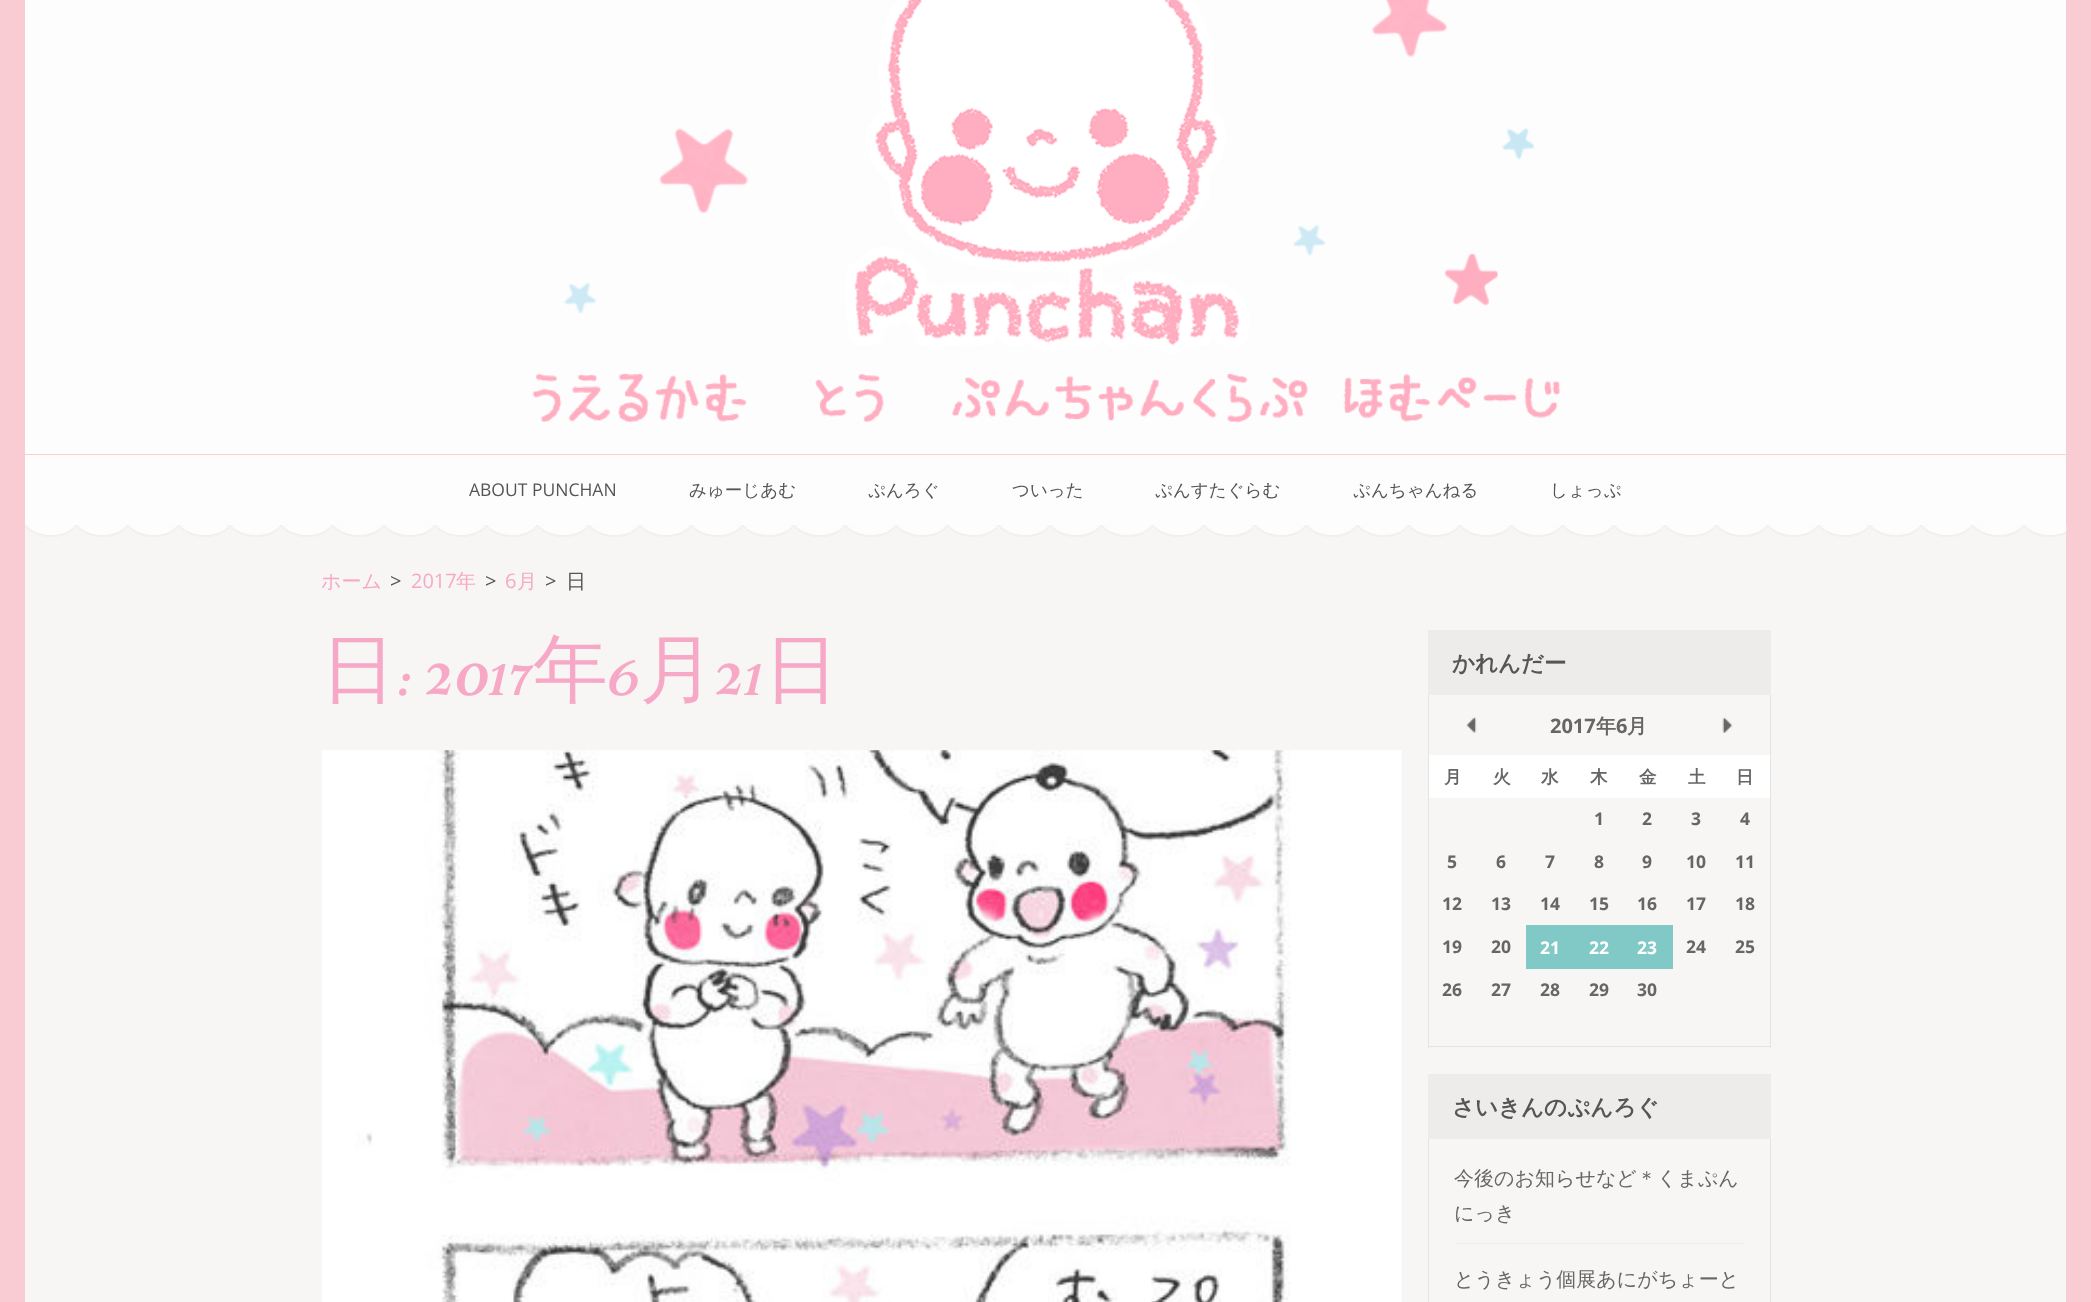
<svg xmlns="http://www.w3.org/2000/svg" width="2091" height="1302">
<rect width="100%" height="100%" fill="#f9ccd3"/>
<rect x="25" y="525" width="2041" height="777" fill="#f7f6f4"/>
<rect x="25" width="2041" height="525" fill="#fdfdfd"/>
<image x="532" y="0" width="1029" height="423" href="media/1.png"/>
<rect x="25" y="454" width="2041" height="1" fill="#ffd0c8"/>
<text x="469" y="496" style="font-family:Open Sans;font-size:17.5px;fill:#555">ABOUT PUNCHAN</text>
<text x="689" y="496" style="font-family:WenQuanYi Zen Hei;font-size:17.5px;font-weight:500;fill:#555">みゅーじあむ</text>
<text x="868" y="496" style="font-family:WenQuanYi Zen Hei;font-size:17.5px;font-weight:500;fill:#555">ぷんろぐ</text>
<text x="1012" y="496" style="font-family:WenQuanYi Zen Hei;font-size:17.5px;font-weight:500;fill:#555">ついった</text>
<text x="1155" y="496" style="font-family:WenQuanYi Zen Hei;font-size:17.5px;font-weight:500;fill:#555">ぷんすたぐらむ</text>
<text x="1353" y="496" style="font-family:WenQuanYi Zen Hei;font-size:17.5px;font-weight:500;fill:#555">ぷんちゃんねる</text>
<text x="1550" y="496" style="font-family:WenQuanYi Zen Hei;font-size:17.5px;font-weight:500;fill:#555">しょっぷ</text>
<image x="25" y="525" width="2042" height="12" href="media/2.png"/>
<text x="321" y="588" style="font-family:WenQuanYi Zen Hei;font-size:20px;font-weight:500;fill:#f6a8c6">ホーム</text>
<text x="390" y="588" style="font-family:Open Sans;font-size:20px;fill:#555">&gt;</text>
<text x="411" y="588" style="font-family:Open Sans;font-size:20px;fill:#f6a8c6">2017</text>
<text x="456" y="588" style="font-family:WenQuanYi Zen Hei;font-size:20px;font-weight:500;fill:#f6a8c6">年</text>
<text x="485" y="588" style="font-family:Open Sans;font-size:20px;fill:#555">&gt;</text>
<text x="505" y="588" style="font-family:Open Sans;font-size:20px;fill:#f6a8c6">6</text>
<text x="517" y="588" style="font-family:WenQuanYi Zen Hei;font-size:20px;font-weight:500;fill:#f6a8c6">月</text>
<text x="545" y="588" style="font-family:Open Sans;font-size:20px;fill:#555">&gt;</text>
<text x="566" y="588" style="font-family:WenQuanYi Zen Hei;font-size:20px;font-weight:500;fill:#555">日</text>
<text x="321" y="695" style="font-family:WenQuanYi Zen Hei;font-size:75px;font-weight:500;fill:#f6a8c6">日</text>
<image x="399" y="673" width="11" height="23" href="media/3.png"/>
<image x="426" y="663" width="108" height="33" href="media/4.png"/>
<text x="533" y="695" style="font-family:WenQuanYi Zen Hei;font-size:75px;font-weight:500;fill:#f6a8c6">年</text>
<image x="609" y="659" width="29" height="37" href="media/5.png"/>
<text x="640" y="695" style="font-family:WenQuanYi Zen Hei;font-size:75px;font-weight:500;fill:#f6a8c6">月</text>
<image x="716" y="663" width="45" height="32" href="media/6.png"/>
<text x="764" y="695" style="font-family:WenQuanYi Zen Hei;font-size:75px;font-weight:500;fill:#f6a8c6">日</text>
<rect x="321" y="751" width="1082" height="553" fill="#0000000d" filter="blur(0.5px)"/>
<image x="321" y="750" width="1082" height="552" href="media/7.png"/>
<rect x="1428" y="630" width="343" height="65" fill="#edecea"/>
<text x="1452" y="671" style="font-family:WenQuanYi Zen Hei;font-size:22.5px;font-weight:bold;fill:#555">かれんだー</text>
<rect x="1770" y="695" width="1" height="353" fill="#e4e3e1"/>
<rect x="1428" y="1046" width="343" height="1" fill="#e4e3e1"/>
<rect x="1428" y="695" width="1" height="353" fill="#e4e3e1"/>
<text x="1550" y="733" style="font-family:Open Sans;font-size:20px;font-weight:bold;fill:#666">2017</text>
<text x="1596" y="733" style="font-family:WenQuanYi Zen Hei;font-size:20px;font-weight:bold;fill:#666">年</text>
<text x="1616" y="733" style="font-family:Open Sans;font-size:20px;font-weight:bold;fill:#666">6</text>
<text x="1627" y="733" style="font-family:WenQuanYi Zen Hei;font-size:20px;font-weight:bold;fill:#666">月</text>
<rect x="1429" y="755" width="341" height="43" fill="#fff"/>
<text x="1444" y="783" style="font-family:WenQuanYi Zen Hei;font-size:17.5px;font-weight:bold;fill:#666">月</text>
<text x="1493" y="783" style="font-family:WenQuanYi Zen Hei;font-size:17.5px;font-weight:bold;fill:#666">火</text>
<text x="1541" y="783" style="font-family:WenQuanYi Zen Hei;font-size:17.5px;font-weight:bold;fill:#666">水</text>
<text x="1590" y="783" style="font-family:WenQuanYi Zen Hei;font-size:17.5px;font-weight:bold;fill:#666">木</text>
<text x="1639" y="783" style="font-family:WenQuanYi Zen Hei;font-size:17.5px;font-weight:bold;fill:#666">金</text>
<text x="1688" y="783" style="font-family:WenQuanYi Zen Hei;font-size:17.5px;font-weight:bold;fill:#666">土</text>
<text x="1736" y="783" style="font-family:WenQuanYi Zen Hei;font-size:17.5px;font-weight:bold;fill:#666">日</text>
<text x="1594" y="825" style="font-family:Open Sans;font-size:17.5px;font-weight:bold;fill:#666">1</text>
<text x="1642" y="825" style="font-family:Open Sans;font-size:17.5px;font-weight:bold;fill:#666">2</text>
<text x="1691" y="825" style="font-family:Open Sans;font-size:17.5px;font-weight:bold;fill:#666">3</text>
<text x="1740" y="825" style="font-family:Open Sans;font-size:17.5px;font-weight:bold;fill:#666">4</text>
<text x="1447" y="868" style="font-family:Open Sans;font-size:17.5px;font-weight:bold;fill:#666">5</text>
<text x="1496" y="868" style="font-family:Open Sans;font-size:17.5px;font-weight:bold;fill:#666">6</text>
<text x="1545" y="868" style="font-family:Open Sans;font-size:17.5px;font-weight:bold;fill:#666">7</text>
<text x="1594" y="868" style="font-family:Open Sans;font-size:17.5px;font-weight:bold;fill:#666">8</text>
<text x="1642" y="868" style="font-family:Open Sans;font-size:17.5px;font-weight:bold;fill:#666">9</text>
<text x="1686" y="868" style="font-family:Open Sans;font-size:17.5px;font-weight:bold;fill:#666">10</text>
<text x="1735" y="868" style="font-family:Open Sans;font-size:17.5px;font-weight:bold;fill:#666">11</text>
<text x="1442" y="910" style="font-family:Open Sans;font-size:17.5px;font-weight:bold;fill:#666">12</text>
<text x="1491" y="910" style="font-family:Open Sans;font-size:17.5px;font-weight:bold;fill:#666">13</text>
<text x="1540" y="910" style="font-family:Open Sans;font-size:17.5px;font-weight:bold;fill:#666">14</text>
<text x="1589" y="910" style="font-family:Open Sans;font-size:17.5px;font-weight:bold;fill:#666">15</text>
<text x="1637" y="910" style="font-family:Open Sans;font-size:17.5px;font-weight:bold;fill:#666">16</text>
<text x="1686" y="910" style="font-family:Open Sans;font-size:17.5px;font-weight:bold;fill:#666">17</text>
<text x="1735" y="910" style="font-family:Open Sans;font-size:17.5px;font-weight:bold;fill:#666">18</text>
<text x="1442" y="953" style="font-family:Open Sans;font-size:17.5px;font-weight:bold;fill:#666">19</text>
<text x="1491" y="953" style="font-family:Open Sans;font-size:17.5px;font-weight:bold;fill:#666">20</text>
<rect x="1526" y="925" width="147" height="44" fill="#81c9c7"/>
<text x="1540" y="954" style="font-family:Open Sans;font-size:17.5px;font-weight:bold;fill:#fff">21</text>
<text x="1589" y="954" style="font-family:Open Sans;font-size:17.5px;font-weight:bold;fill:#fff">22</text>
<text x="1637" y="954" style="font-family:Open Sans;font-size:17.5px;font-weight:bold;fill:#fff">23</text>
<text x="1686" y="953" style="font-family:Open Sans;font-size:17.5px;font-weight:bold;fill:#666">24</text>
<text x="1735" y="953" style="font-family:Open Sans;font-size:17.5px;font-weight:bold;fill:#666">25</text>
<text x="1442" y="996" style="font-family:Open Sans;font-size:17.5px;font-weight:bold;fill:#666">26</text>
<text x="1491" y="996" style="font-family:Open Sans;font-size:17.5px;font-weight:bold;fill:#666">27</text>
<text x="1540" y="996" style="font-family:Open Sans;font-size:17.5px;font-weight:bold;fill:#666">28</text>
<text x="1589" y="996" style="font-family:Open Sans;font-size:17.5px;font-weight:bold;fill:#666">29</text>
<text x="1637" y="996" style="font-family:Open Sans;font-size:17.5px;font-weight:bold;fill:#666">30</text>
<image x="1466" y="717" width="11" height="16" href="media/8.png"/>
<image x="1722" y="717" width="11" height="16" href="media/9.png"/>
<rect x="1428" y="1074" width="343" height="65" fill="#edecea"/>
<text x="1452" y="1115" style="font-family:WenQuanYi Zen Hei;font-size:22.5px;font-weight:bold;fill:#555">さいきんのぷんろぐ</text>
<rect x="1770" y="1139" width="1" height="163" fill="#e4e3e1"/>
<rect x="1428" y="1139" width="1" height="163" fill="#e4e3e1"/>
<rect x="1455" y="1243" width="289" height="1" fill="#edecea"/>
<text x="1454" y="1185" style="font-family:WenQuanYi Zen Hei;font-size:20px;font-weight:500;fill:#666">今後のお知らせなど＊くまぷん</text>
<text x="1454" y="1220" style="font-family:WenQuanYi Zen Hei;font-size:20px;font-weight:500;fill:#666">にっき</text>
<text x="1454" y="1286" style="font-family:WenQuanYi Zen Hei;font-size:20px;font-weight:500;fill:#666">とうきょう個展あにがちょーと</text>
</svg>
